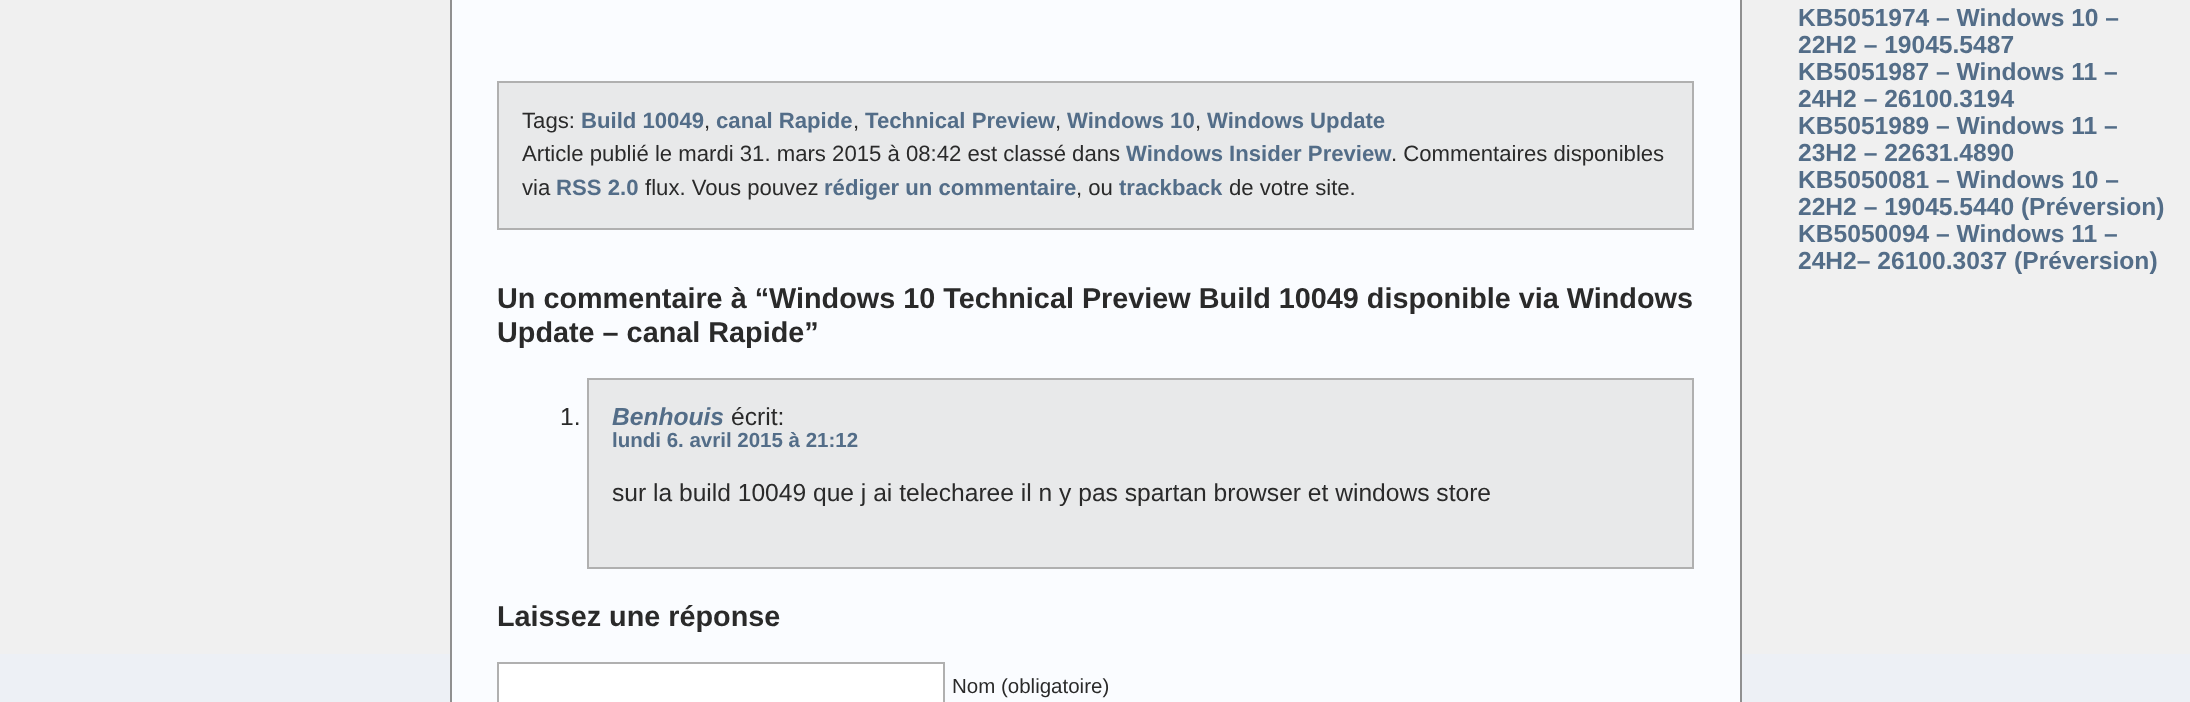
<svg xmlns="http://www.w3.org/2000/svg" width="2190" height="702">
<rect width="100%" height="100%" fill="#f0f0f0"/>
<rect y="654" width="2190" height="48" fill="#edf0f5"/>
<rect x="451" y="-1" width="1290" height="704" fill="#fafcff" stroke="#909090" stroke-width="2"/>
<rect x="498" y="82" width="1195" height="147" fill="#e8e9ea" stroke="#b0b0b0" stroke-width="2"/>
<text x="522" y="128" style="font-family:Liberation Sans;font-size:22.15px;fill:#2a2a2a">Tags:</text>
<text x="581" y="128" style="font-family:Liberation Sans;font-size:22.15px;font-weight:bold;fill:#536d88">Build 10049</text>
<text x="704" y="128" style="font-family:Liberation Sans;font-size:22.15px;fill:#2a2a2a">,</text>
<text x="716" y="128" style="font-family:Liberation Sans;font-size:22.15px;font-weight:bold;fill:#536d88">canal Rapide</text>
<text x="853" y="128" style="font-family:Liberation Sans;font-size:22.15px;fill:#2a2a2a">,</text>
<text x="865" y="128" style="font-family:Liberation Sans;font-size:22.15px;font-weight:bold;fill:#536d88">Technical Preview</text>
<text x="1055" y="128" style="font-family:Liberation Sans;font-size:22.15px;fill:#2a2a2a">,</text>
<text x="1067" y="128" style="font-family:Liberation Sans;font-size:22.15px;font-weight:bold;fill:#536d88">Windows 10</text>
<text x="1195" y="128" style="font-family:Liberation Sans;font-size:22.15px;fill:#2a2a2a">,</text>
<text x="1207" y="128" style="font-family:Liberation Sans;font-size:22.15px;font-weight:bold;fill:#536d88">Windows Update</text>
<text x="522" y="161" style="font-family:Liberation Sans;font-size:22.15px;fill:#2a2a2a">Article publié le mardi 31. mars 2015 à 08:42 est classé dans</text>
<text x="1126" y="161" style="font-family:Liberation Sans;font-size:22.15px;font-weight:bold;fill:#536d88">Windows Insider Preview</text>
<text x="1391" y="161" style="font-family:Liberation Sans;font-size:22.15px;fill:#2a2a2a">. Commentaires disponibles</text>
<text x="522" y="195" style="font-family:Liberation Sans;font-size:22.15px;fill:#2a2a2a">via</text>
<text x="556" y="195" style="font-family:Liberation Sans;font-size:22.15px;font-weight:bold;fill:#536d88">RSS 2.0</text>
<text x="645" y="195" style="font-family:Liberation Sans;font-size:22.15px;fill:#2a2a2a">flux. Vous pouvez</text>
<text x="824" y="195" style="font-family:Liberation Sans;font-size:22.15px;font-weight:bold;fill:#536d88">rédiger un commentaire</text>
<text x="1076" y="195" style="font-family:Liberation Sans;font-size:22.15px;fill:#2a2a2a">, ou</text>
<text x="1119" y="195" style="font-family:Liberation Sans;font-size:22.15px;font-weight:bold;fill:#536d88">trackback</text>
<text x="1229" y="195" style="font-family:Liberation Sans;font-size:22.15px;fill:#2a2a2a">de votre site.</text>
<text x="497" y="308" style="font-family:Liberation Sans;font-size:28.8px;font-weight:bold;fill:#2a2a2a">Un commentaire à “Windows 10 Technical Preview Build 10049 disponible via Windows</text>
<text x="497" y="342" style="font-family:Liberation Sans;font-size:28.8px;font-weight:bold;fill:#2a2a2a">Update – canal Rapide”</text>
<rect x="588" y="379" width="1105" height="189" fill="#e8e9ea" stroke="#b0b0b0" stroke-width="2"/>
<text x="560" y="425" style="font-family:Liberation Sans;font-size:24.6px;fill:#2a2a2a">1.</text>
<text x="612" y="425" style="font-family:Liberation Sans;font-size:24.6px;font-weight:bold;font-style:italic;fill:#536d88">Benhouis</text>
<text x="731" y="425" style="font-family:Liberation Sans;font-size:24.6px;fill:#2a2a2a">écrit:</text>
<text x="612" y="447" style="font-family:Liberation Sans;font-size:20.5px;font-weight:bold;fill:#536d88">lundi 6. avril 2015 à 21:12</text>
<text x="612" y="501" style="font-family:Liberation Sans;font-size:24.6px;fill:#2a2a2a">sur la build 10049 que j ai telecharee il n y pas spartan browser et windows store</text>
<text x="497" y="626" style="font-family:Liberation Sans;font-size:28.8px;font-weight:bold;fill:#2a2a2a">Laissez une réponse</text>
<rect x="498" y="663" width="446" height="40" fill="#fff" stroke="#b0b0b0" stroke-width="2"/>
<text x="952" y="693" style="font-family:Liberation Sans;font-size:20.5px;fill:#2a2a2a">Nom (obligatoire)</text>
<text x="1798" y="26" style="font-family:Liberation Sans;font-size:24.6px;font-weight:bold;fill:#536d88">KB5051974 – Windows 10 –</text>
<text x="1798" y="53" style="font-family:Liberation Sans;font-size:24.6px;font-weight:bold;fill:#536d88">22H2 – 19045.5487</text>
<text x="1798" y="80" style="font-family:Liberation Sans;font-size:24.6px;font-weight:bold;fill:#536d88">KB5051987 – Windows 11 –</text>
<text x="1798" y="107" style="font-family:Liberation Sans;font-size:24.6px;font-weight:bold;fill:#536d88">24H2 – 26100.3194</text>
<text x="1798" y="134" style="font-family:Liberation Sans;font-size:24.6px;font-weight:bold;fill:#536d88">KB5051989 – Windows 11 –</text>
<text x="1798" y="161" style="font-family:Liberation Sans;font-size:24.6px;font-weight:bold;fill:#536d88">23H2 – 22631.4890</text>
<text x="1798" y="188" style="font-family:Liberation Sans;font-size:24.6px;font-weight:bold;fill:#536d88">KB5050081 – Windows 10 –</text>
<text x="1798" y="215" style="font-family:Liberation Sans;font-size:24.6px;font-weight:bold;fill:#536d88">22H2 – 19045.5440 (Préversion)</text>
<text x="1798" y="242" style="font-family:Liberation Sans;font-size:24.6px;font-weight:bold;fill:#536d88">KB5050094 – Windows 11 –</text>
<text x="1798" y="269" style="font-family:Liberation Sans;font-size:24.6px;font-weight:bold;fill:#536d88">24H2– 26100.3037 (Préversion)</text>
</svg>
